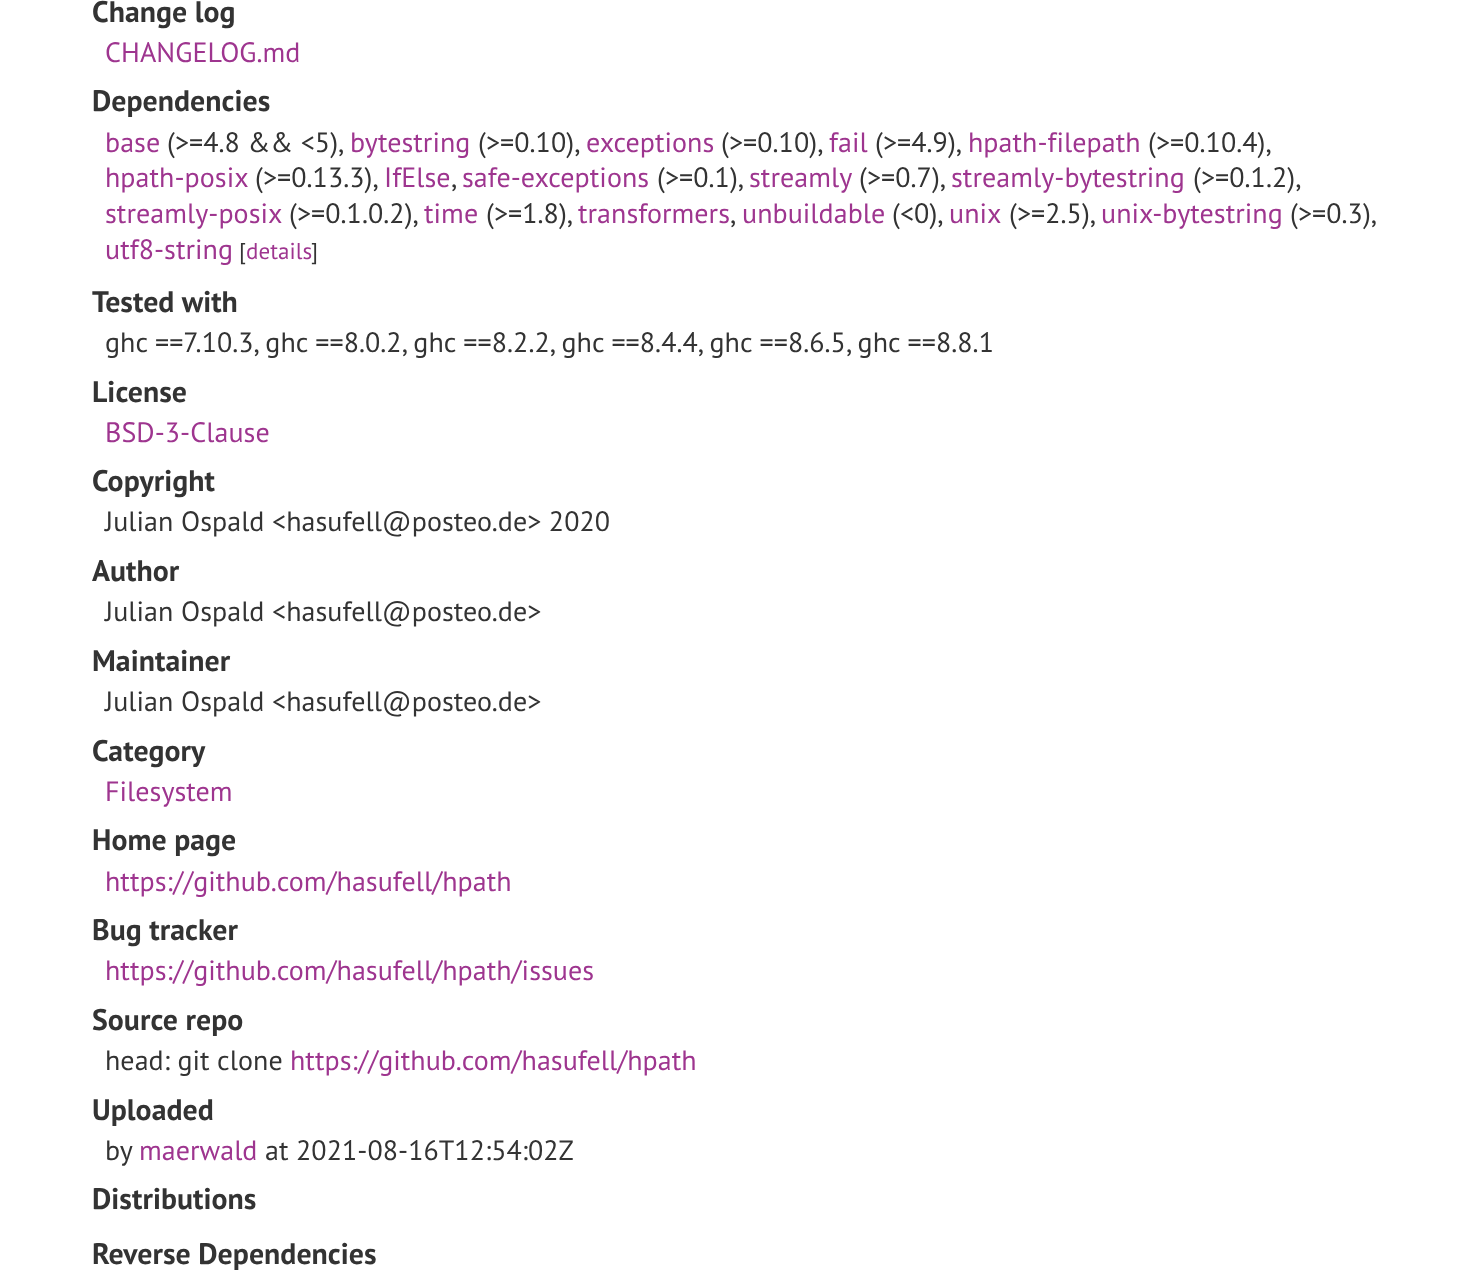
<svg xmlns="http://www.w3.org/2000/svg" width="1474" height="1272">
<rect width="100%" height="100%" fill="#fff"/>
<text x="92" y="22" style="font-family:PT Sans;font-size:29.75px;font-weight:bold;letter-spacing:0.05px;fill:#333">Change log</text>
<text x="105" y="62" style="font-family:PT Sans;font-size:28px;letter-spacing:0.05px;fill:#9e358f">CHANGELOG.md</text>
<text x="92" y="111" style="font-family:PT Sans;font-size:29.75px;font-weight:bold;letter-spacing:0.05px;fill:#333">Dependencies</text>
<text x="105" y="152" style="font-family:PT Sans;font-size:28px;letter-spacing:0.05px;fill:#9e358f">base</text>
<text x="167" y="152" style="font-family:PT Sans;font-size:28px;letter-spacing:0.05px;fill:#333">(&gt;=4.8 &amp;&amp; &lt;5),</text>
<text x="350" y="152" style="font-family:PT Sans;font-size:28px;letter-spacing:0.05px;fill:#9e358f">bytestring</text>
<text x="478" y="152" style="font-family:PT Sans;font-size:28px;letter-spacing:0.05px;fill:#333">(&gt;=0.10),</text>
<text x="586" y="152" style="font-family:PT Sans;font-size:28px;letter-spacing:0.05px;fill:#9e358f">exceptions</text>
<text x="721" y="152" style="font-family:PT Sans;font-size:28px;letter-spacing:0.05px;fill:#333">(&gt;=0.10),</text>
<text x="829" y="152" style="font-family:PT Sans;font-size:28px;letter-spacing:0.05px;fill:#9e358f">fail</text>
<text x="875" y="152" style="font-family:PT Sans;font-size:28px;letter-spacing:0.05px;fill:#333">(&gt;=4.9),</text>
<text x="968" y="152" style="font-family:PT Sans;font-size:28px;letter-spacing:0.05px;fill:#9e358f">hpath-filepath</text>
<text x="1148" y="152" style="font-family:PT Sans;font-size:28px;letter-spacing:0.05px;fill:#333">(&gt;=0.10.4),</text>
<text x="105" y="187" style="font-family:PT Sans;font-size:28px;letter-spacing:0.05px;fill:#9e358f">hpath-posix</text>
<text x="255" y="187" style="font-family:PT Sans;font-size:28px;letter-spacing:0.05px;fill:#333">(&gt;=0.13.3),</text>
<text x="384" y="187" style="font-family:PT Sans;font-size:28px;letter-spacing:0.05px;fill:#9e358f">IfElse</text>
<text x="451" y="187" style="font-family:PT Sans;font-size:28px;letter-spacing:0.05px;fill:#333">,</text>
<text x="462" y="187" style="font-family:PT Sans;font-size:28px;letter-spacing:0.05px;fill:#9e358f">safe-exceptions</text>
<text x="657" y="187" style="font-family:PT Sans;font-size:28px;letter-spacing:0.05px;fill:#333">(&gt;=0.1),</text>
<text x="749" y="187" style="font-family:PT Sans;font-size:28px;letter-spacing:0.05px;fill:#9e358f">streamly</text>
<text x="859" y="187" style="font-family:PT Sans;font-size:28px;letter-spacing:0.05px;fill:#333">(&gt;=0.7),</text>
<text x="951" y="187" style="font-family:PT Sans;font-size:28px;letter-spacing:0.05px;fill:#9e358f">streamly-bytestring</text>
<text x="1193" y="187" style="font-family:PT Sans;font-size:28px;letter-spacing:0.05px;fill:#333">(&gt;=0.1.2),</text>
<text x="105" y="223" style="font-family:PT Sans;font-size:28px;letter-spacing:0.05px;fill:#9e358f">streamly-posix</text>
<text x="289" y="223" style="font-family:PT Sans;font-size:28px;letter-spacing:0.05px;fill:#333">(&gt;=0.1.0.2),</text>
<text x="424" y="223" style="font-family:PT Sans;font-size:28px;letter-spacing:0.05px;fill:#9e358f">time</text>
<text x="486" y="223" style="font-family:PT Sans;font-size:28px;letter-spacing:0.05px;fill:#333">(&gt;=1.8),</text>
<text x="578" y="223" style="font-family:PT Sans;font-size:28px;letter-spacing:0.05px;fill:#9e358f">transformers</text>
<text x="730" y="223" style="font-family:PT Sans;font-size:28px;letter-spacing:0.05px;fill:#333">,</text>
<text x="742" y="223" style="font-family:PT Sans;font-size:28px;letter-spacing:0.05px;fill:#9e358f">unbuildable</text>
<text x="892" y="223" style="font-family:PT Sans;font-size:28px;letter-spacing:0.05px;fill:#333">(&lt;0),</text>
<text x="949" y="223" style="font-family:PT Sans;font-size:28px;letter-spacing:0.05px;fill:#9e358f">unix</text>
<text x="1009" y="223" style="font-family:PT Sans;font-size:28px;letter-spacing:0.05px;fill:#333">(&gt;=2.5),</text>
<text x="1101" y="223" style="font-family:PT Sans;font-size:28px;letter-spacing:0.05px;fill:#9e358f">unix-bytestring</text>
<text x="1290" y="223" style="font-family:PT Sans;font-size:28px;letter-spacing:0.05px;fill:#333">(&gt;=0.3),</text>
<text x="105" y="259" style="font-family:PT Sans;font-size:28px;letter-spacing:0.05px;fill:#9e358f">utf8-string</text>
<text x="239" y="259" style="font-family:PT Sans;font-size:23px;letter-spacing:0.05px;fill:#333">[</text>
<text x="246" y="259" style="font-family:PT Sans;font-size:23px;letter-spacing:0.05px;fill:#9e358f">details</text>
<text x="311" y="259" style="font-family:PT Sans;font-size:23px;letter-spacing:0.05px;fill:#333">]</text>
<text x="92" y="312" style="font-family:PT Sans;font-size:29.75px;font-weight:bold;letter-spacing:0.05px;fill:#333">Tested with</text>
<text x="105" y="352" style="font-family:PT Sans;font-size:28px;letter-spacing:0.05px;fill:#333">ghc ==7.10.3, ghc ==8.0.2, ghc ==8.2.2, ghc ==8.4.4, ghc ==8.6.5, ghc ==8.8.1</text>
<text x="92" y="402" style="font-family:PT Sans;font-size:29.75px;font-weight:bold;letter-spacing:0.05px;fill:#333">License</text>
<text x="105" y="442" style="font-family:PT Sans;font-size:28px;letter-spacing:0.05px;fill:#9e358f">BSD-3-Clause</text>
<text x="92" y="491" style="font-family:PT Sans;font-size:29.75px;font-weight:bold;letter-spacing:0.05px;fill:#333">Copyright</text>
<text x="105" y="531" style="font-family:PT Sans;font-size:28px;letter-spacing:0.05px;fill:#333">Julian Ospald &lt;hasufell@posteo.de&gt; 2020</text>
<text x="92" y="581" style="font-family:PT Sans;font-size:29.75px;font-weight:bold;letter-spacing:0.05px;fill:#333">Author</text>
<text x="105" y="621" style="font-family:PT Sans;font-size:28px;letter-spacing:0.05px;fill:#333">Julian Ospald &lt;hasufell@posteo.de&gt;</text>
<text x="92" y="671" style="font-family:PT Sans;font-size:29.75px;font-weight:bold;letter-spacing:0.05px;fill:#333">Maintainer</text>
<text x="105" y="711" style="font-family:PT Sans;font-size:28px;letter-spacing:0.05px;fill:#333">Julian Ospald &lt;hasufell@posteo.de&gt;</text>
<text x="92" y="761" style="font-family:PT Sans;font-size:29.75px;font-weight:bold;letter-spacing:0.05px;fill:#333">Category</text>
<text x="105" y="801" style="font-family:PT Sans;font-size:28px;letter-spacing:0.05px;fill:#9e358f">Filesystem</text>
<text x="92" y="850" style="font-family:PT Sans;font-size:29.75px;font-weight:bold;letter-spacing:0.05px;fill:#333">Home page</text>
<text x="105" y="891" style="font-family:PT Sans;font-size:28px;letter-spacing:0.05px;fill:#9e358f">https://github.com/hasufell/hpath</text>
<text x="92" y="940" style="font-family:PT Sans;font-size:29.75px;font-weight:bold;letter-spacing:0.05px;fill:#333">Bug tracker</text>
<text x="105" y="980" style="font-family:PT Sans;font-size:28px;letter-spacing:0.05px;fill:#9e358f">https://github.com/hasufell/hpath/issues</text>
<text x="92" y="1030" style="font-family:PT Sans;font-size:29.75px;font-weight:bold;letter-spacing:0.05px;fill:#333">Source repo</text>
<text x="105" y="1070" style="font-family:PT Sans;font-size:28px;letter-spacing:0.05px;fill:#333">head: git clone</text>
<text x="290" y="1070" style="font-family:PT Sans;font-size:28px;letter-spacing:0.05px;fill:#9e358f">https://github.com/hasufell/hpath</text>
<text x="92" y="1120" style="font-family:PT Sans;font-size:29.75px;font-weight:bold;letter-spacing:0.05px;fill:#333">Uploaded</text>
<text x="105" y="1160" style="font-family:PT Sans;font-size:28px;letter-spacing:0.05px;fill:#333">by</text>
<text x="139" y="1160" style="font-family:PT Sans;font-size:28px;letter-spacing:0.05px;fill:#9e358f">maerwald</text>
<text x="265" y="1160" style="font-family:PT Sans;font-size:28px;letter-spacing:0.05px;fill:#333">at 2021-08-16T12:54:02Z</text>
<text x="92" y="1209" style="font-family:PT Sans;font-size:29.75px;font-weight:bold;letter-spacing:0.05px;fill:#333">Distributions</text>
<text x="92" y="1264" style="font-family:PT Sans;font-size:29.75px;font-weight:bold;letter-spacing:0.05px;fill:#333">Reverse Dependencies</text>
</svg>
